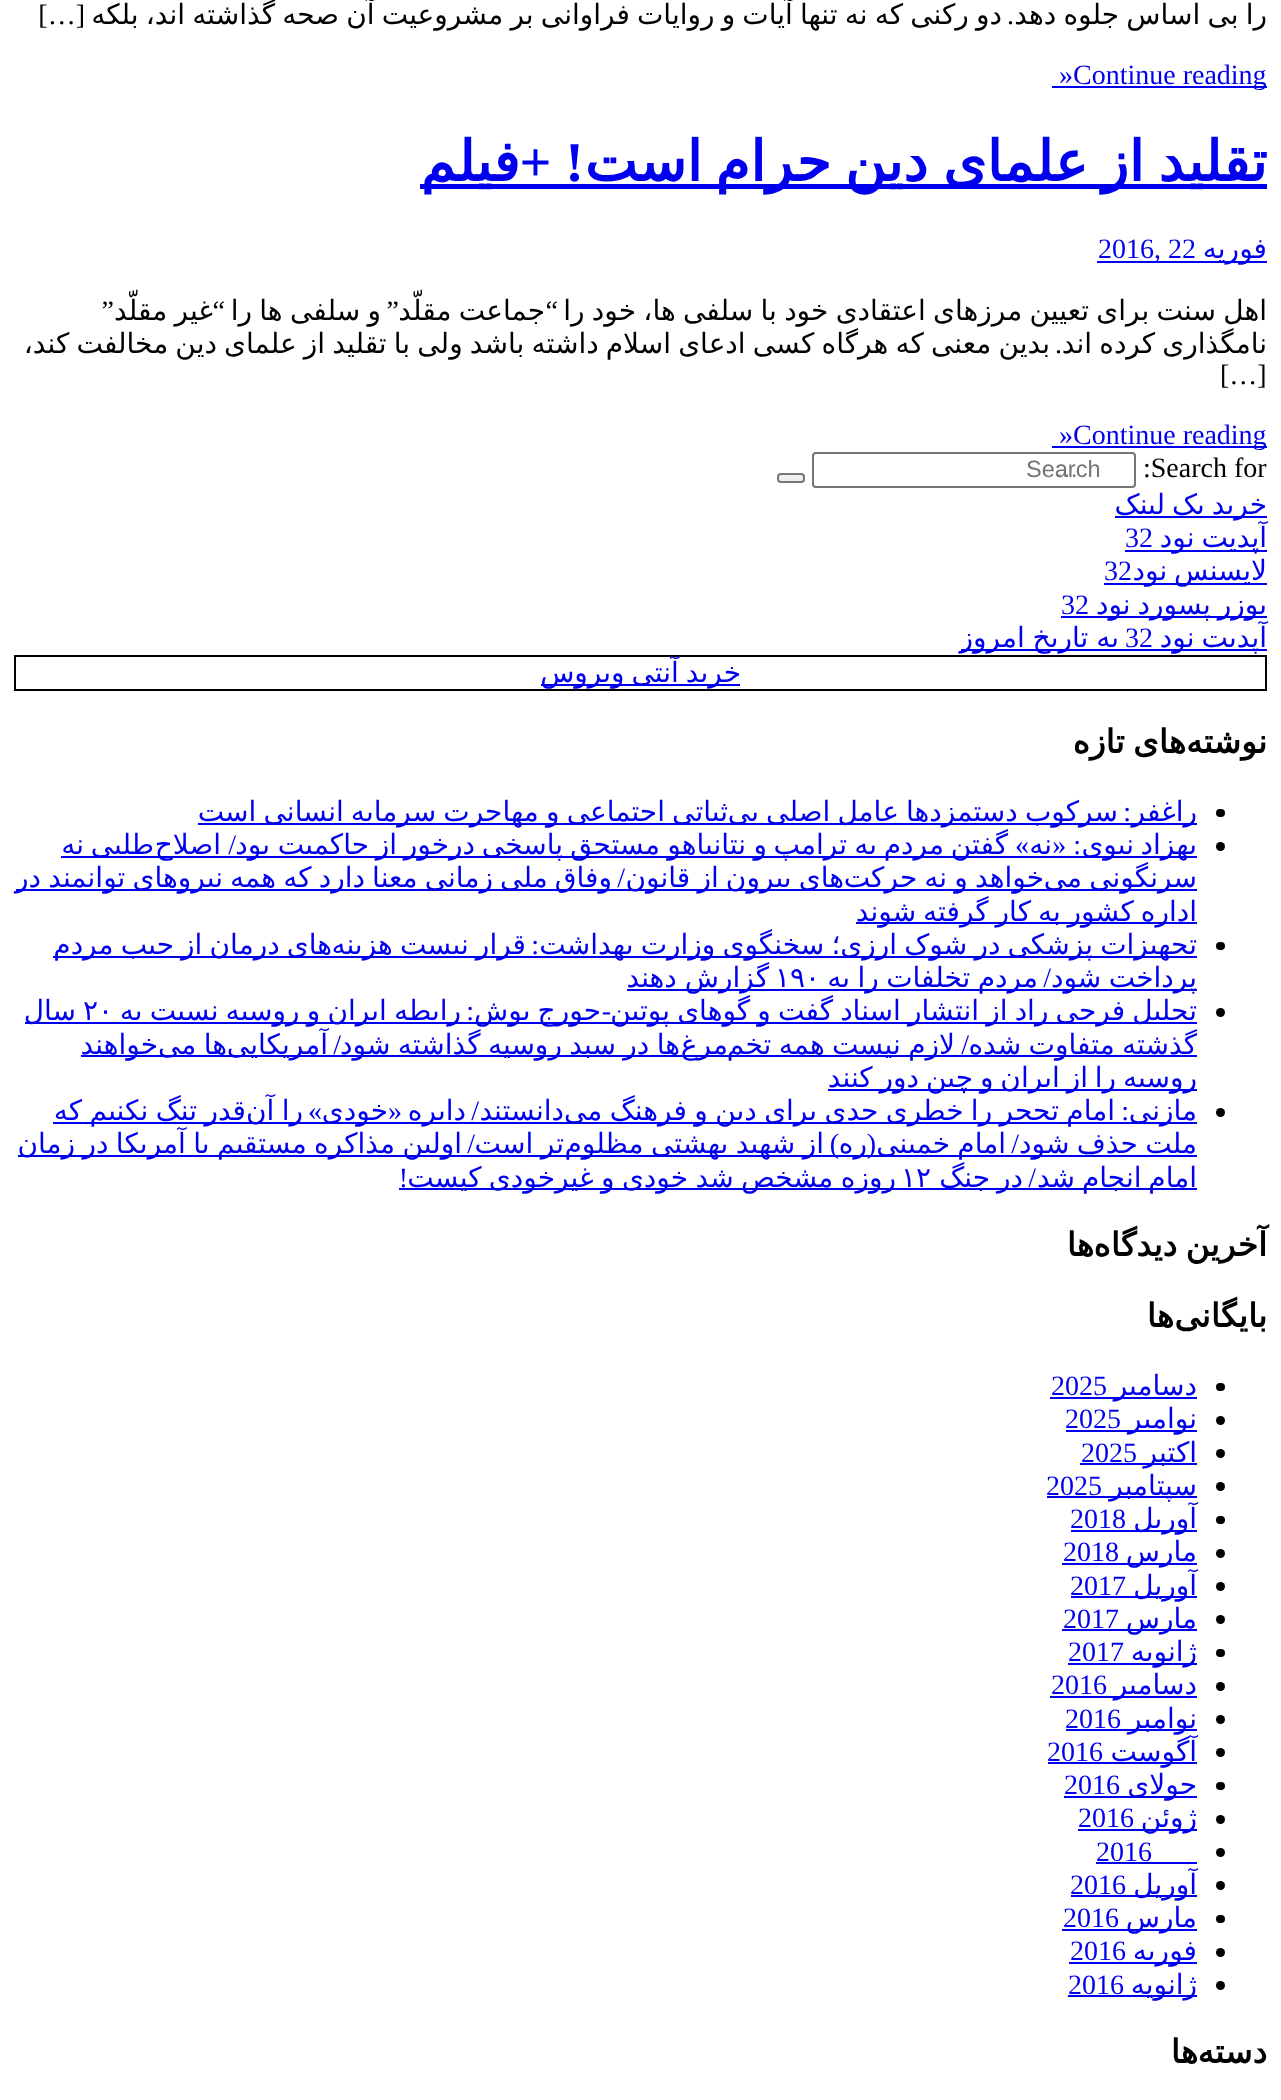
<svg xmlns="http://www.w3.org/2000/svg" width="1281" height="2100">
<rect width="100%" height="100%" fill="#fff"/>
<text x="1267" y="24" word-spacing="-1.75" style="font-family:DejaVu Sans;font-size:28px;direction:rtl;fill:#000">را بی اساس جلوه دهد</text>
<text x="1014" y="24" style="font-family:Liberation Serif;font-size:28px;direction:rtl;fill:#000">.</text>
<text x="1002" y="24" word-spacing="-1.75" style="font-family:DejaVu Sans;font-size:28px;direction:rtl;fill:#000">دو رکنی که نه تنها آیات و روایات فراوانی بر مشروعیت آن صحه گذاشته اند، بلکه</text>
<text x="85" y="24" style="font-family:Liberation Serif;font-size:28px;direction:rtl;fill:#000">[…]</text>
<rect x="1052" y="86" width="215" height="2" fill="#00e"/>
<text x="1059" y="84" style="font-family:Liberation Serif;font-size:28px;fill:#00e">»Continue reading</text>
<rect x="420" y="184" width="847" height="5" fill="#00e"/>
<text x="1267" y="181" style="font-family:DejaVu Sans;font-size:56px;font-weight:bold;direction:rtl;fill:#00e">تقلید</text>
<text x="1144" y="181" style="font-family:DejaVu Sans;font-size:56px;font-weight:bold;direction:rtl;fill:#00e">از</text>
<text x="1088" y="181" style="font-family:DejaVu Sans;font-size:56px;font-weight:bold;direction:rtl;fill:#00e">علمای</text>
<text x="928" y="181" style="font-family:DejaVu Sans;font-size:56px;font-weight:bold;direction:rtl;fill:#00e">دین</text>
<text x="831" y="181" style="font-family:DejaVu Sans;font-size:56px;font-weight:bold;direction:rtl;fill:#00e">حرام</text>
<text x="702" y="181" style="font-family:DejaVu Sans;font-size:56px;font-weight:bold;direction:rtl;fill:#00e">است</text>
<text x="584" y="181" style="font-family:Liberation Serif;font-size:56px;font-weight:bold;direction:rtl;fill:#00e">! +</text>
<text x="520" y="181" style="font-family:DejaVu Sans;font-size:56px;font-weight:bold;direction:rtl;fill:#00e">فیلم</text>
<rect x="1097" y="261" width="170" height="2" fill="#00e"/>
<text x="1267" y="258" style="font-family:DejaVu Sans;font-size:28px;direction:rtl;fill:#00e">فوریه</text>
<text x="1098" y="258" style="font-family:Liberation Serif;font-size:28px;fill:#00e">2016, 22</text>
<text x="1267" y="320" word-spacing="-1.6" style="font-family:DejaVu Sans;font-size:28px;direction:rtl;fill:#000">اهل سنت برای تعیین مرزهای اعتقادی خود با سلفی ها، خود را</text>
<text x="558" y="320" style="font-family:Liberation Serif;font-size:28px;direction:rtl;fill:#000">“</text>
<text x="545" y="320" word-spacing="-1.6" style="font-family:DejaVu Sans;font-size:28px;direction:rtl;fill:#000">جماعت مقلّد</text>
<text x="399" y="320" style="font-family:Liberation Serif;font-size:28px;direction:rtl;fill:#000">”</text>
<text x="381" y="320" word-spacing="-1.6" style="font-family:DejaVu Sans;font-size:28px;direction:rtl;fill:#000">و سلفی ها را</text>
<text x="225" y="320" style="font-family:Liberation Serif;font-size:28px;direction:rtl;fill:#000">“</text>
<text x="213" y="320" word-spacing="-1.6" style="font-family:DejaVu Sans;font-size:28px;direction:rtl;fill:#000">غیر مقلّد</text>
<text x="114" y="320" style="font-family:Liberation Serif;font-size:28px;direction:rtl;fill:#000">”</text>
<text x="1267" y="353" word-spacing="-1.75" style="font-family:DejaVu Sans;font-size:28px;direction:rtl;fill:#000">نامگذاری کرده اند</text>
<text x="1062" y="353" style="font-family:Liberation Serif;font-size:28px;direction:rtl;fill:#000">.</text>
<text x="1050" y="353" word-spacing="-1.75" style="font-family:DejaVu Sans;font-size:28px;direction:rtl;fill:#000">بدین معنی که هرگاه کسی ادعای اسلام داشته باشد ولی با تقلید از علمای دین مخالفت کند،</text>
<text x="1220" y="384" style="font-family:Liberation Serif;font-size:28px;fill:#000">[…]</text>
<rect x="1052" y="446" width="215" height="2" fill="#00e"/>
<text x="1059" y="444" style="font-family:Liberation Serif;font-size:28px;fill:#00e">»Continue reading</text>
<text x="1143" y="477" style="font-family:Liberation Serif;font-size:28px;fill:#000">:Search for</text>
<rect x="813" y="453" width="322" height="34" rx="3" fill="none" stroke="#767676" stroke-width="2"/>
<text x="1026" y="477" style="font-family:Liberation Sans;font-size:23.5px;fill:#757575">Search</text>
<text x="1055" y="477" style="font-family:Liberation Sans;font-size:23.5px;fill:#757575">…</text>
<rect x="778" y="474" width="26" height="8" rx="3" fill="#efefef" stroke="#767676" stroke-width="2"/>
<rect x="1115" y="516" width="152" height="2" fill="#00e"/>
<text x="1267" y="514" word-spacing="-2" style="font-family:DejaVu Sans;font-size:28px;direction:rtl;fill:#00e">خرید بک لینک</text>
<rect x="1125" y="550" width="142" height="2" fill="#00e"/>
<text x="1267" y="547" word-spacing="-2" style="font-family:DejaVu Sans;font-size:28px;direction:rtl;fill:#00e">آپدیت نود</text>
<text x="1125" y="547" style="font-family:Liberation Serif;font-size:28px;fill:#00e">32</text>
<rect x="1104" y="583" width="163" height="2" fill="#00e"/>
<text x="1267" y="580" word-spacing="-2" style="font-family:DejaVu Sans;font-size:28px;direction:rtl;fill:#00e">لایسنس نود</text>
<text x="1104" y="580" style="font-family:Liberation Serif;font-size:28px;fill:#00e">32</text>
<rect x="1061" y="616" width="206" height="2" fill="#00e"/>
<text x="1267" y="614" word-spacing="-2" style="font-family:DejaVu Sans;font-size:28px;direction:rtl;fill:#00e">یوزر پسورد نود</text>
<text x="1061" y="614" style="font-family:Liberation Serif;font-size:28px;fill:#00e">32</text>
<rect x="961" y="649" width="306" height="2" fill="#00e"/>
<text x="1267" y="647" word-spacing="-2" style="font-family:DejaVu Sans;font-size:28px;direction:rtl;fill:#00e">آپدیت نود</text>
<text x="1125" y="647" style="font-family:Liberation Serif;font-size:28px;fill:#00e">32</text>
<text x="1119" y="647" word-spacing="-1" style="font-family:DejaVu Sans;font-size:28px;direction:rtl;fill:#00e">به تاریخ امروز</text>
<rect x="15" y="656" width="1251" height="34" fill="none" stroke="#000" stroke-width="2"/>
<rect x="541" y="684" width="199" height="2" fill="#00e"/>
<text x="741" y="682" word-spacing="-2" style="font-family:DejaVu Sans;font-size:28px;direction:rtl;fill:#00e">خرید آنتی ویروس</text>
<text x="1267" y="753" style="font-family:DejaVu Sans;font-size:32.75px;font-weight:bold;direction:rtl;fill:#000">نوشته</text>
<text x="1186" y="753" word-spacing="-2" style="font-family:DejaVu Sans;font-size:32.75px;font-weight:bold;direction:rtl;fill:#000">های تازه</text>
<rect x="1216" y="809" width="9" height="8" rx="4" fill="#000"/>
<rect x="198" y="823" width="999" height="2" fill="#00e"/>
<text x="1197" y="821" style="font-family:DejaVu Sans;font-size:28px;direction:rtl;fill:#00e">راغفر</text>
<text x="1131" y="821" style="font-family:Liberation Serif;font-size:28px;direction:rtl;fill:#00e">:</text>
<text x="1118" y="821" word-spacing="-1.75" style="font-family:DejaVu Sans;font-size:28px;direction:rtl;fill:#00e">سرکوب دستمزدها عامل اصلی بی</text>
<text x="728" y="821" word-spacing="-1.75" style="font-family:DejaVu Sans;font-size:28px;direction:rtl;fill:#00e">ثباتی اجتماعی و مهاجرت سرمایه انسانی است</text>
<circle cx="1220.5" cy="846.5" r="4.5" fill="#000"/>
<rect x="61" y="856" width="1136" height="2" fill="#00e"/>
<text x="1197" y="854" style="font-family:DejaVu Sans;font-size:28px;direction:rtl;fill:#00e">بهزاد</text>
<text x="1134" y="854" style="font-family:DejaVu Sans;font-size:28px;direction:rtl;fill:#00e">نبوی</text>
<text x="1081" y="854" style="font-family:Liberation Serif;font-size:28px;direction:rtl;fill:#00e">: «</text>
<text x="1052" y="854" style="font-family:DejaVu Sans;font-size:28px;direction:rtl;fill:#00e">نه</text>
<text x="1029" y="854" style="font-family:Liberation Serif;font-size:28px;direction:rtl;fill:#00e">»</text>
<text x="1008" y="854" style="font-family:DejaVu Sans;font-size:28px;direction:rtl;fill:#00e">گفتن</text>
<text x="944" y="854" style="font-family:DejaVu Sans;font-size:28px;direction:rtl;fill:#00e">مردم</text>
<text x="877" y="854" style="font-family:DejaVu Sans;font-size:28px;direction:rtl;fill:#00e">به</text>
<text x="847" y="854" style="font-family:DejaVu Sans;font-size:28px;direction:rtl;fill:#00e">ترامپ</text>
<text x="767" y="854" style="font-family:DejaVu Sans;font-size:28px;direction:rtl;fill:#00e">و</text>
<text x="746" y="854" style="font-family:DejaVu Sans;font-size:28px;direction:rtl;fill:#00e">نتانیاهو</text>
<text x="660" y="854" style="font-family:DejaVu Sans;font-size:28px;direction:rtl;fill:#00e">مستحق</text>
<text x="563" y="854" style="font-family:DejaVu Sans;font-size:28px;direction:rtl;fill:#00e">پاسخی</text>
<text x="475" y="854" style="font-family:DejaVu Sans;font-size:28px;direction:rtl;fill:#00e">درخور</text>
<text x="397" y="854" style="font-family:DejaVu Sans;font-size:28px;direction:rtl;fill:#00e">از</text>
<text x="369" y="854" style="font-family:DejaVu Sans;font-size:28px;direction:rtl;fill:#00e">حاکمیت</text>
<text x="270" y="854" style="font-family:DejaVu Sans;font-size:28px;direction:rtl;fill:#00e">بود</text>
<text x="236" y="854" style="font-family:Liberation Serif;font-size:28px;direction:rtl;fill:#00e">/</text>
<text x="221" y="854" style="font-family:DejaVu Sans;font-size:28px;direction:rtl;fill:#00e">اصلاح</text>
<text x="154" y="854" style="font-family:DejaVu Sans;font-size:28px;direction:rtl;fill:#00e">طلبی</text>
<text x="84" y="854" style="font-family:DejaVu Sans;font-size:28px;direction:rtl;fill:#00e">نه</text>
<rect x="16" y="889" width="1181" height="2" fill="#00e"/>
<text x="1197" y="887" word-spacing="-1.75" style="font-family:DejaVu Sans;font-size:28px;direction:rtl;fill:#00e">سرنگونی می</text>
<text x="1044" y="887" word-spacing="-1.75" style="font-family:DejaVu Sans;font-size:28px;direction:rtl;fill:#00e">خواهد و نه حرکت</text>
<text x="844" y="887" word-spacing="-1.75" style="font-family:DejaVu Sans;font-size:28px;direction:rtl;fill:#00e">های بیرون از قانون</text>
<text x="625" y="887" style="font-family:Liberation Serif;font-size:28px;direction:rtl;fill:#00e">/</text>
<text x="612" y="887" word-spacing="-1.75" style="font-family:DejaVu Sans;font-size:28px;direction:rtl;fill:#00e">وفاق ملی زمانی معنا دارد که همه نیروهای توانمند در</text>
<rect x="856" y="922" width="341" height="2" fill="#00e"/>
<text x="1197" y="921" word-spacing="-2" style="font-family:DejaVu Sans;font-size:28px;direction:rtl;fill:#00e">اداره کشور به کار گرفته شوند</text>
<rect x="1216" y="942" width="9" height="8" rx="4" fill="#000"/>
<rect x="53" y="956" width="1144" height="2" fill="#00e"/>
<text x="1197" y="954" word-spacing="-1.75" style="font-family:DejaVu Sans;font-size:28px;direction:rtl;fill:#00e">تجهیزات پزشکی در شوک ارزی؛ سخنگوی وزارت بهداشت</text>
<text x="539" y="954" style="font-family:Liberation Serif;font-size:28px;direction:rtl;fill:#00e">:</text>
<text x="526" y="954" word-spacing="-1.75" style="font-family:DejaVu Sans;font-size:28px;direction:rtl;fill:#00e">قرار نیست هزینه</text>
<text x="332" y="954" word-spacing="-1.75" style="font-family:DejaVu Sans;font-size:28px;direction:rtl;fill:#00e">های درمان از جیب مردم</text>
<rect x="627" y="989" width="570" height="2" fill="#00e"/>
<text x="1197" y="987" word-spacing="-1.5" style="font-family:DejaVu Sans;font-size:28px;direction:rtl;fill:#00e">پرداخت شود</text>
<text x="1051" y="987" style="font-family:Liberation Serif;font-size:28px;direction:rtl;fill:#00e">/</text>
<text x="1038" y="987" word-spacing="-1.5" style="font-family:DejaVu Sans;font-size:28px;direction:rtl;fill:#00e">مردم تخلفات را به</text>
<text x="775" y="987" style="font-family:DejaVu Sans;font-size:28px;fill:#00e">۱۹۰</text>
<text x="769" y="987" word-spacing="-1" style="font-family:DejaVu Sans;font-size:28px;direction:rtl;fill:#00e">گزارش دهند</text>
<circle cx="1220.5" cy="1012.5" r="4.5" fill="#000"/>
<rect x="25" y="1022" width="1172" height="2" fill="#00e"/>
<text x="1197" y="1020" word-spacing="-1.75" style="font-family:DejaVu Sans;font-size:28px;direction:rtl;fill:#00e">تحلیل فرجی راد از انتشار اسناد گفت و گوهای پوتین</text>
<text x="611" y="1020" style="font-family:Liberation Serif;font-size:28px;direction:rtl;fill:#00e">-</text>
<text x="601" y="1020" word-spacing="-1.75" style="font-family:DejaVu Sans;font-size:28px;direction:rtl;fill:#00e">جورج بوش</text>
<text x="474" y="1020" style="font-family:Liberation Serif;font-size:28px;direction:rtl;fill:#00e">:</text>
<text x="461" y="1020" word-spacing="-1.75" style="font-family:DejaVu Sans;font-size:28px;direction:rtl;fill:#00e">رابطه ایران و روسیه نسبت به</text>
<text x="83" y="1020" style="font-family:DejaVu Sans;font-size:28px;fill:#00e">۲۰</text>
<text x="76" y="1020" style="font-family:DejaVu Sans;font-size:28px;direction:rtl;fill:#00e">سال</text>
<rect x="81" y="1055" width="1116" height="2" fill="#00e"/>
<text x="1197" y="1054" word-spacing="-1.5" style="font-family:DejaVu Sans;font-size:28px;direction:rtl;fill:#00e">گذشته متفاوت شده</text>
<text x="969" y="1054" style="font-family:Liberation Serif;font-size:28px;direction:rtl;fill:#00e">/</text>
<text x="955" y="1054" word-spacing="-1.5" style="font-family:DejaVu Sans;font-size:28px;direction:rtl;fill:#00e">لازم نیست همه تخم</text>
<text x="728" y="1054" style="font-family:DejaVu Sans;font-size:28px;direction:rtl;fill:#00e">مرغ</text>
<text x="680" y="1054" word-spacing="-1.5" style="font-family:DejaVu Sans;font-size:28px;direction:rtl;fill:#00e">ها در سبد روسیه گذاشته شود</text>
<text x="341" y="1054" style="font-family:Liberation Serif;font-size:28px;direction:rtl;fill:#00e">/</text>
<text x="328" y="1054" style="font-family:DejaVu Sans;font-size:28px;direction:rtl;fill:#00e">آمریکایی</text>
<text x="227" y="1054" word-spacing="-1.5" style="font-family:DejaVu Sans;font-size:28px;direction:rtl;fill:#00e">ها می</text>
<text x="158" y="1054" style="font-family:DejaVu Sans;font-size:28px;direction:rtl;fill:#00e">خواهند</text>
<rect x="828" y="1089" width="369" height="2" fill="#00e"/>
<text x="1197" y="1087" word-spacing="-2" style="font-family:DejaVu Sans;font-size:28px;direction:rtl;fill:#00e">روسیه را از ایران و چین دور کنند</text>
<circle cx="1220.5" cy="1112.5" r="4.5" fill="#000"/>
<rect x="53" y="1122" width="1144" height="2" fill="#00e"/>
<text x="1197" y="1120" style="font-family:DejaVu Sans;font-size:28px;direction:rtl;fill:#00e">مازنی</text>
<text x="1129" y="1120" style="font-family:Liberation Serif;font-size:28px;direction:rtl;fill:#00e">:</text>
<text x="1115" y="1120" word-spacing="-1.5" style="font-family:DejaVu Sans;font-size:28px;direction:rtl;fill:#00e">امام تحجر را خطری جدی برای دین و فرهنگ می</text>
<text x="564" y="1120" style="font-family:DejaVu Sans;font-size:28px;direction:rtl;fill:#00e">دانستند</text>
<text x="479" y="1120" style="font-family:Liberation Serif;font-size:28px;direction:rtl;fill:#00e">/</text>
<text x="466" y="1120" style="font-family:DejaVu Sans;font-size:28px;direction:rtl;fill:#00e">دایره</text>
<text x="402" y="1120" style="font-family:Liberation Serif;font-size:28px;direction:rtl;fill:#00e">«</text>
<text x="388" y="1120" style="font-family:DejaVu Sans;font-size:28px;direction:rtl;fill:#00e">خودی</text>
<text x="322" y="1120" style="font-family:Liberation Serif;font-size:28px;direction:rtl;fill:#00e">»</text>
<text x="303" y="1120" word-spacing="-1.5" style="font-family:DejaVu Sans;font-size:28px;direction:rtl;fill:#00e">را آن</text>
<text x="246" y="1120" word-spacing="-1.5" style="font-family:DejaVu Sans;font-size:28px;direction:rtl;fill:#00e">قدر تنگ نکنیم که</text>
<rect x="18" y="1155" width="1179" height="2" fill="#00e"/>
<text x="1197" y="1153" word-spacing="-1.5" style="font-family:DejaVu Sans;font-size:28px;direction:rtl;fill:#00e">ملت حذف شود</text>
<text x="1019" y="1153" style="font-family:Liberation Serif;font-size:28px;direction:rtl;fill:#00e">/</text>
<text x="1006" y="1153" word-spacing="-1.5" style="font-family:DejaVu Sans;font-size:28px;direction:rtl;fill:#00e">امام خمینی</text>
<text x="876" y="1153" style="font-family:Liberation Serif;font-size:28px;direction:rtl;fill:#00e">(</text>
<text x="867" y="1153" style="font-family:DejaVu Sans;font-size:28px;direction:rtl;fill:#00e">ره</text>
<text x="839" y="1153" style="font-family:Liberation Serif;font-size:28px;direction:rtl;fill:#00e">)</text>
<text x="824" y="1153" word-spacing="-1.5" style="font-family:DejaVu Sans;font-size:28px;direction:rtl;fill:#00e">از شهید بهشتی مظلوم</text>
<text x="564" y="1153" word-spacing="-1.5" style="font-family:DejaVu Sans;font-size:28px;direction:rtl;fill:#00e">تر است</text>
<text x="475" y="1153" style="font-family:Liberation Serif;font-size:28px;direction:rtl;fill:#00e">/</text>
<text x="462" y="1153" word-spacing="-1.5" style="font-family:DejaVu Sans;font-size:28px;direction:rtl;fill:#00e">اولین مذاکره مستقیم با آمریکا در زمان</text>
<rect x="399" y="1188" width="798" height="2" fill="#00e"/>
<text x="1197" y="1187" word-spacing="-2" style="font-family:DejaVu Sans;font-size:28px;direction:rtl;fill:#00e">امام انجام شد</text>
<text x="1036" y="1187" style="font-family:Liberation Serif;font-size:28px;direction:rtl;fill:#00e">/</text>
<text x="1023" y="1187" word-spacing="-2" style="font-family:DejaVu Sans;font-size:28px;direction:rtl;fill:#00e">در جنگ</text>
<text x="901" y="1187" style="font-family:DejaVu Sans;font-size:28px;fill:#00e">۱۲</text>
<text x="896" y="1187" word-spacing="-1.5" style="font-family:DejaVu Sans;font-size:28px;direction:rtl;fill:#00e">روزه مشخص شد خودی و غیرخودی کیست</text>
<text x="408" y="1187" style="font-family:Liberation Serif;font-size:28px;direction:rtl;fill:#00e">!</text>
<text x="1267" y="1256" word-spacing="-2" style="font-family:DejaVu Sans;font-size:32.75px;font-weight:bold;direction:rtl;fill:#000">آخرین دیدگاه</text>
<text x="1094" y="1256" style="font-family:DejaVu Sans;font-size:32.75px;font-weight:bold;direction:rtl;fill:#000">ها</text>
<text x="1267" y="1327" style="font-family:DejaVu Sans;font-size:32.75px;font-weight:bold;direction:rtl;fill:#000">بایگانی</text>
<text x="1174" y="1327" style="font-family:DejaVu Sans;font-size:32.75px;font-weight:bold;direction:rtl;fill:#000">ها</text>
<rect x="1216" y="1383" width="9" height="8" rx="4" fill="#000"/>
<rect x="1050" y="1397" width="147" height="2" fill="#00e"/>
<text x="1197" y="1395" style="font-family:DejaVu Sans;font-size:28px;direction:rtl;fill:#00e">دسامبر</text>
<text x="1051" y="1395" style="font-family:Liberation Serif;font-size:28px;fill:#00e">2025</text>
<circle cx="1220.5" cy="1420.5" r="4.5" fill="#000"/>
<rect x="1066" y="1430" width="131" height="2" fill="#00e"/>
<text x="1197" y="1428" style="font-family:DejaVu Sans;font-size:28px;direction:rtl;fill:#00e">نوامبر</text>
<text x="1065" y="1428" style="font-family:Liberation Serif;font-size:28px;fill:#00e">2025</text>
<circle cx="1220.5" cy="1453.5" r="4.5" fill="#000"/>
<rect x="1080" y="1463" width="117" height="2" fill="#00e"/>
<text x="1197" y="1462" style="font-family:DejaVu Sans;font-size:28px;direction:rtl;fill:#00e">اکتبر</text>
<text x="1081" y="1462" style="font-family:Liberation Serif;font-size:28px;fill:#00e">2025</text>
<circle cx="1220.5" cy="1486.5" r="4.5" fill="#000"/>
<rect x="1047" y="1496" width="150" height="2" fill="#00e"/>
<text x="1197" y="1495" style="font-family:DejaVu Sans;font-size:28px;direction:rtl;fill:#00e">سپتامبر</text>
<text x="1046" y="1495" style="font-family:Liberation Serif;font-size:28px;fill:#00e">2025</text>
<rect x="1216" y="1516" width="9" height="8" rx="4" fill="#000"/>
<rect x="1071" y="1530" width="126" height="2" fill="#00e"/>
<text x="1197" y="1528" style="font-family:DejaVu Sans;font-size:28px;direction:rtl;fill:#00e">آوریل</text>
<text x="1070" y="1528" style="font-family:Liberation Serif;font-size:28px;fill:#00e">2018</text>
<circle cx="1220.5" cy="1553.5" r="4.5" fill="#000"/>
<rect x="1062" y="1563" width="135" height="2" fill="#00e"/>
<text x="1197" y="1561" style="font-family:DejaVu Sans;font-size:28px;direction:rtl;fill:#00e">مارس</text>
<text x="1063" y="1561" style="font-family:Liberation Serif;font-size:28px;fill:#00e">2018</text>
<circle cx="1220.5" cy="1586.5" r="4.5" fill="#000"/>
<rect x="1071" y="1596" width="126" height="2" fill="#00e"/>
<text x="1197" y="1595" style="font-family:DejaVu Sans;font-size:28px;direction:rtl;fill:#00e">آوریل</text>
<text x="1070" y="1595" style="font-family:Liberation Serif;font-size:28px;fill:#00e">2017</text>
<circle cx="1220.5" cy="1619.5" r="4.5" fill="#000"/>
<rect x="1062" y="1629" width="135" height="2" fill="#00e"/>
<text x="1197" y="1628" style="font-family:DejaVu Sans;font-size:28px;direction:rtl;fill:#00e">مارس</text>
<text x="1063" y="1628" style="font-family:Liberation Serif;font-size:28px;fill:#00e">2017</text>
<rect x="1216" y="1649" width="9" height="8" rx="4" fill="#000"/>
<rect x="1068" y="1663" width="129" height="2" fill="#00e"/>
<text x="1197" y="1661" style="font-family:DejaVu Sans;font-size:28px;direction:rtl;fill:#00e">ژانویه</text>
<text x="1068" y="1661" style="font-family:Liberation Serif;font-size:28px;fill:#00e">2017</text>
<circle cx="1220.5" cy="1686.5" r="4.5" fill="#000"/>
<rect x="1050" y="1696" width="147" height="2" fill="#00e"/>
<text x="1197" y="1694" style="font-family:DejaVu Sans;font-size:28px;direction:rtl;fill:#00e">دسامبر</text>
<text x="1051" y="1694" style="font-family:Liberation Serif;font-size:28px;fill:#00e">2016</text>
<circle cx="1220.5" cy="1719.5" r="4.5" fill="#000"/>
<rect x="1066" y="1729" width="131" height="2" fill="#00e"/>
<text x="1197" y="1728" style="font-family:DejaVu Sans;font-size:28px;direction:rtl;fill:#00e">نوامبر</text>
<text x="1065" y="1728" style="font-family:Liberation Serif;font-size:28px;fill:#00e">2016</text>
<circle cx="1220.5" cy="1752.5" r="4.5" fill="#000"/>
<rect x="1048" y="1762" width="149" height="2" fill="#00e"/>
<text x="1197" y="1761" style="font-family:DejaVu Sans;font-size:28px;direction:rtl;fill:#00e">آگوست</text>
<text x="1047" y="1761" style="font-family:Liberation Serif;font-size:28px;fill:#00e">2016</text>
<rect x="1216" y="1782" width="9" height="8" rx="4" fill="#000"/>
<rect x="1064" y="1796" width="133" height="2" fill="#00e"/>
<text x="1197" y="1794" style="font-family:DejaVu Sans;font-size:28px;direction:rtl;fill:#00e">جولای</text>
<text x="1064" y="1794" style="font-family:Liberation Serif;font-size:28px;fill:#00e">2016</text>
<circle cx="1220.5" cy="1819.5" r="4.5" fill="#000"/>
<rect x="1078" y="1829" width="119" height="2" fill="#00e"/>
<text x="1197" y="1827" style="font-family:DejaVu Sans;font-size:28px;direction:rtl;fill:#00e">ژوئن</text>
<text x="1078" y="1827" style="font-family:Liberation Serif;font-size:28px;fill:#00e">2016</text>
<circle cx="1220.5" cy="1852.5" r="4.5" fill="#000"/>
<text x="1096" y="1861" style="font-family:Liberation Serif;font-size:28px;fill:#00e">2016</text>
<rect x="1096" y="1862" width="101" height="2" fill="#00e"/>
<circle cx="1220.5" cy="1885.5" r="4.5" fill="#000"/>
<rect x="1071" y="1895" width="126" height="2" fill="#00e"/>
<text x="1197" y="1894" style="font-family:DejaVu Sans;font-size:28px;direction:rtl;fill:#00e">آوریل</text>
<text x="1070" y="1894" style="font-family:Liberation Serif;font-size:28px;fill:#00e">2016</text>
<rect x="1216" y="1915" width="9" height="8" rx="4" fill="#000"/>
<rect x="1062" y="1929" width="135" height="2" fill="#00e"/>
<text x="1197" y="1927" style="font-family:DejaVu Sans;font-size:28px;direction:rtl;fill:#00e">مارس</text>
<text x="1063" y="1927" style="font-family:Liberation Serif;font-size:28px;fill:#00e">2016</text>
<circle cx="1220.5" cy="1952.5" r="4.5" fill="#000"/>
<rect x="1069" y="1962" width="128" height="2" fill="#00e"/>
<text x="1197" y="1960" style="font-family:DejaVu Sans;font-size:28px;direction:rtl;fill:#00e">فوریه</text>
<text x="1070" y="1960" style="font-family:Liberation Serif;font-size:28px;fill:#00e">2016</text>
<circle cx="1220.5" cy="1985.5" r="4.5" fill="#000"/>
<rect x="1068" y="1995" width="129" height="2" fill="#00e"/>
<text x="1197" y="1994" style="font-family:DejaVu Sans;font-size:28px;direction:rtl;fill:#00e">ژانویه</text>
<text x="1068" y="1994" style="font-family:Liberation Serif;font-size:28px;fill:#00e">2016</text>
<text x="1267" y="2063" style="font-family:DejaVu Sans;font-size:32.75px;font-weight:bold;direction:rtl;fill:#000">دسته</text>
<text x="1198" y="2063" style="font-family:DejaVu Sans;font-size:32.75px;font-weight:bold;direction:rtl;fill:#000">ها</text>
</svg>
